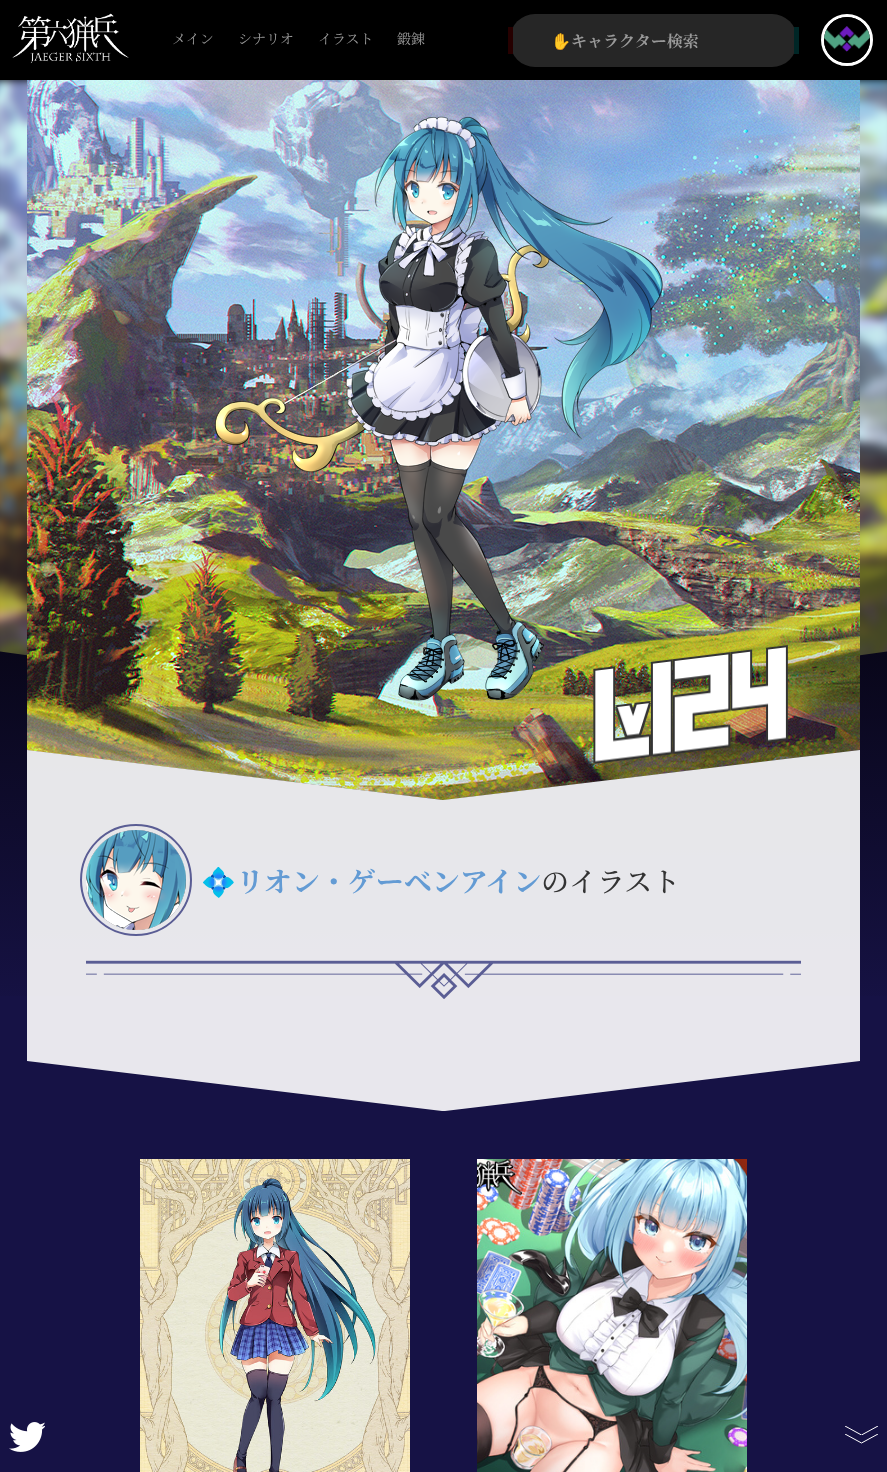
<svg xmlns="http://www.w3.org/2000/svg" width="887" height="1472">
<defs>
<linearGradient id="g1" gradientUnits="userSpaceOnUse" x1="443" y1="0" x2="444" y2="1008"><stop offset="0" stop-color="#000"/><stop offset="0.1" stop-color="#000"/><stop offset="0.6" stop-color="#070514"/><stop offset="1" stop-color="#161244"/></linearGradient>
<clipPath id="clip1"><rect x="845" y="1426" width="33" height="9"/></clipPath>
<clipPath id="clip2"><rect x="845" y="1434" width="33" height="10"/></clipPath>
</defs>
<rect width="100%" height="100%" fill="#161245"/>
<rect width="887" height="996" fill="url(#g1)"/>
<image x="12" y="13" width="117" height="51" href="media/1.png"/>
<text x="172" y="44" style="font-family:Noto Serif JP;font-size:14px;fill:#999">メイン</text>
<text x="238" y="44" style="font-family:Noto Serif JP;font-size:14px;fill:#999">シナリオ</text>
<text x="318" y="44" style="font-family:Noto Serif JP;font-size:14px;fill:#999">イラスト</text>
<text x="397" y="44" style="font-family:Noto Serif JP;font-size:14px;fill:#999">鍛錬</text>
<rect x="510" y="14" width="287" height="53" rx="25" fill="#262626"/>
<rect x="508" y="27" width="5" height="27" fill="#260000"/>
<text x="551" y="47" style="font-family:Noto Color Emoji;font-size:16px;font-weight:bold;fill:#999">✋</text>
<text x="571" y="47" style="font-family:Noto Serif JP;font-size:16px;font-weight:bold;fill:#999">キャラクター検索</text>
<rect x="794" y="27" width="5" height="27" fill="#002626"/>
<circle cx="847" cy="40" r="24.5" fill="none" stroke="#fff" stroke-width="3"/>
<image x="824" y="17" width="46" height="46" href="media/2.png"/>
<image x="0" y="80" width="887" height="576" href="media/3.png"/>
<image x="27" y="750" width="833" height="50" href="media/5.png"/>
<image x="27" y="80" width="833" height="720" href="media/4.png"/>
<image x="214" y="116" width="449" height="585" href="media/6.png"/>
<image x="593" y="666" width="58" height="98" href="media/7.png"/>
<image x="650" y="659" width="23" height="98" href="media/8.png"/>
<image x="672" y="652" width="59" height="103" href="media/9.png"/>
<image x="730" y="645" width="58" height="98" href="media/10.png"/>
<path d="M442 1111l-415-50v-311l416 50l417-50v311l-415 50z" fill="#ffffffe6"/>
<image x="86" y="830" width="100" height="100" href="media/11.png"/>
<circle cx="136" cy="880" r="50" fill="#fff"/>
<image x="86" y="830" width="100" height="100" href="media/12.png"/>
<circle cx="136" cy="880" r="55" fill="none" stroke="#5a5d94" stroke-width="2"/>
<text x="201" y="892" style="font-family:Noto Color Emoji;font-size:28px;fill:#639bd4">💠</text>
<text x="236" y="892" style="font-family:Noto Serif JP;font-size:28px;font-weight:bold;fill:#639bd4">リオン・ゲーベンアイン</text>
<text x="541" y="892" style="font-family:Noto Serif JP;font-size:28px;font-weight:500;fill:#333">のイラスト</text>
<image x="116" y="960" width="655" height="39" href="media/13.png"/>
<image x="86" y="960" width="30" height="15" href="media/14.png"/>
<image x="771" y="960" width="30" height="15" href="media/15.png"/>
<image x="140" y="1159" width="270" height="313" href="media/16.png"/>
<image x="477" y="1159" width="270" height="313" href="media/17.png"/>
<image x="9" y="1422" width="36" height="30" href="media/18.png"/>
<g clip-path="url(#clip1)">
<path d="M845 1426l16.5 9l16.5-9" fill="none" stroke="#fff"/>
</g>
<g clip-path="url(#clip2)">
<path d="M845 1434l16.5 9l16.5-9" fill="none" stroke="#fff"/>
</g>
</svg>
